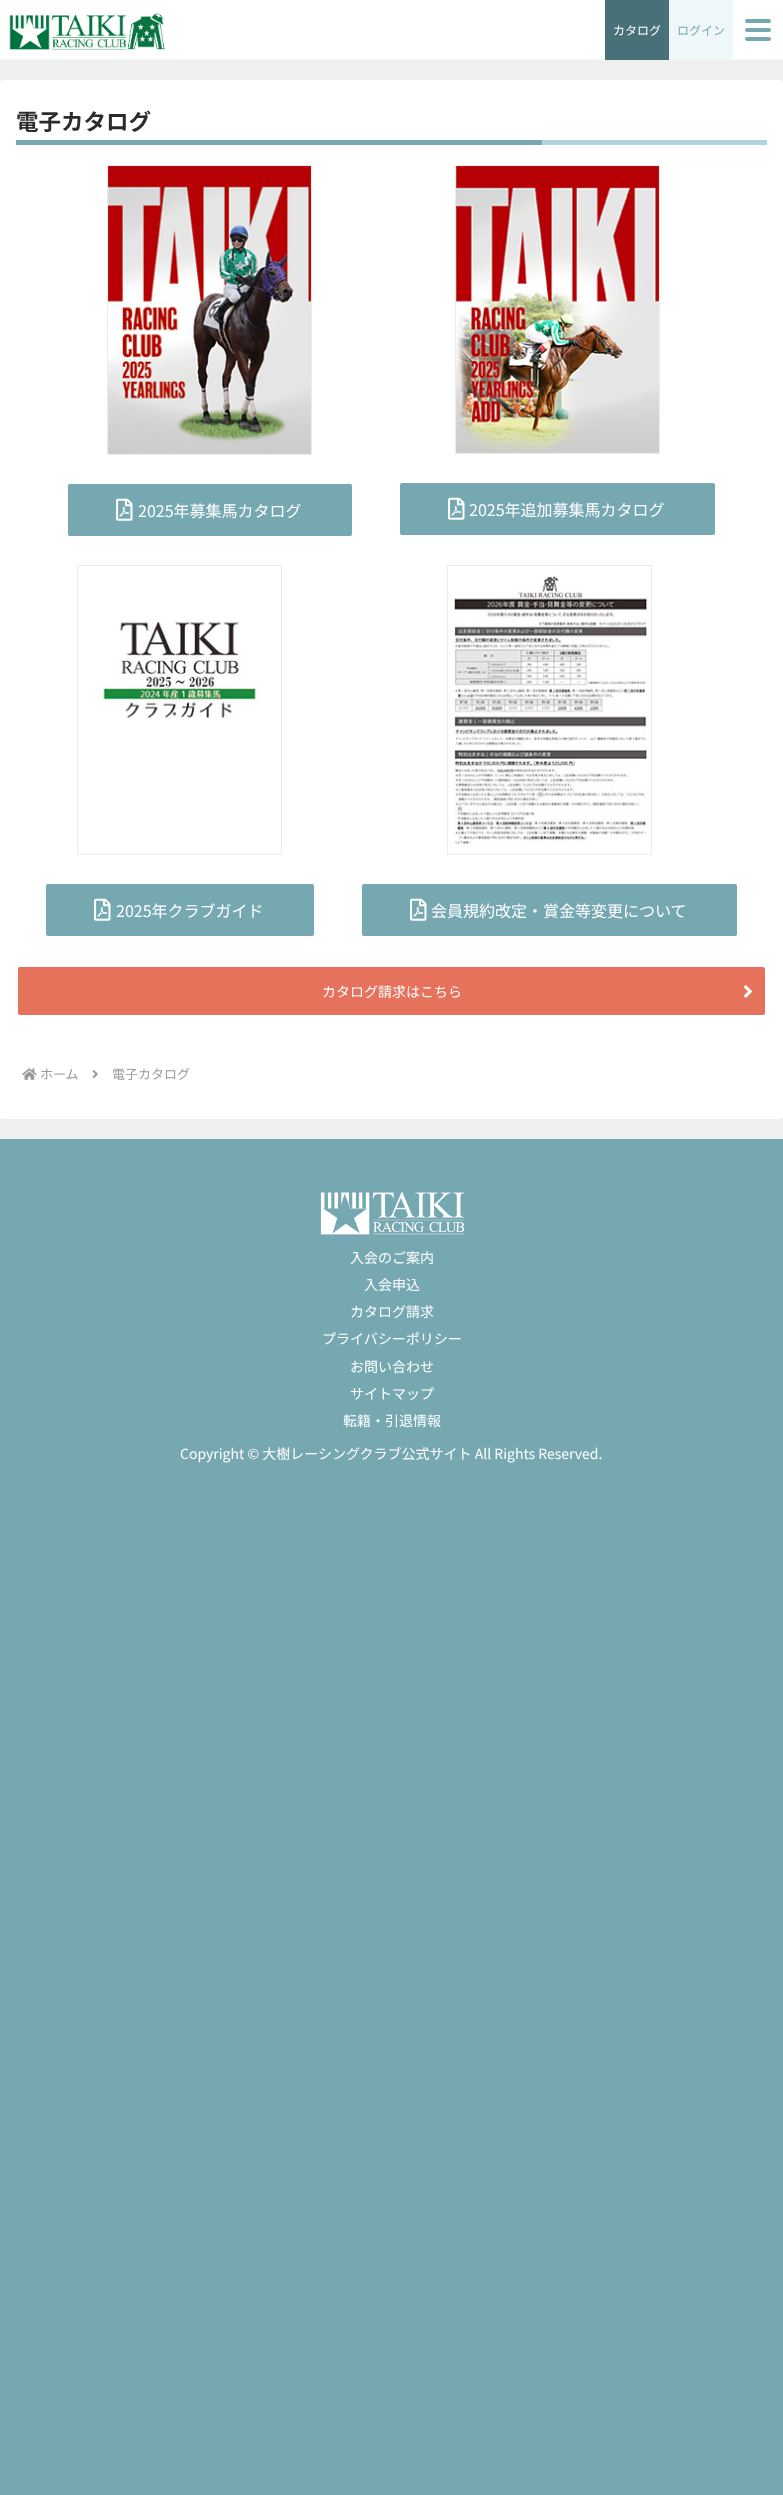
<svg xmlns="http://www.w3.org/2000/svg" width="783" height="2495">
<rect width="100%" height="100%" fill="#76a8b2"/>
<rect width="783" height="59" fill="#fff"/>
<rect y="59" width="783" height="1" fill="#f0f7f8"/>
<image x="9" y="13" width="156" height="37" href="media/1.png"/>
<rect x="605" width="64" height="60" fill="#477079"/>
<text x="613" y="35" style="font-family:Noto Sans JP;font-size:12px;fill:#fff">カタログ</text>
<rect x="669" width="64" height="59" fill="#f0f7f8"/>
<text x="677" y="35" style="font-family:Noto Sans JP;font-size:12px;fill:#76a8b2">ログイン</text>
<rect x="745" y="19" width="26" height="4" rx="2" fill="#76a8b2"/>
<rect x="745" y="28" width="26" height="4" rx="2" fill="#76a8b2"/>
<rect x="745" y="37" width="26" height="4" rx="2" fill="#76a8b2"/>
<rect y="60" width="783" height="1079" fill="#efefef"/>
<rect y="80" width="783" height="1039" rx="4" fill="#fff"/>
<rect x="542" y="140" width="225" height="5" fill="#b1d5dc"/>
<text x="16" y="130" style="font-family:Noto Sans JP;font-size:22.5px;font-weight:bold;fill:#2c2c2c">電子カタログ</text>
<rect x="16" y="140" width="526" height="5" fill="#76a8b2"/>
<rect x="107.5" y="165.5" width="204" height="289" fill="none" stroke="#e8ecef"/>
<image x="108" y="166" width="203" height="288" href="media/2.png"/>
<rect x="68" y="484" width="284" height="52" rx="2" fill="#76a8b2"/>
<image x="116" y="498" width="17" height="23" href="media/3.png"/>
<text x="138" y="517" style="font-family:Noto Sans JP;font-size:16px;fill:#fff">2025年募集馬カタログ</text>
<rect x="455.5" y="165.5" width="204" height="288" fill="none" stroke="#e8ecef"/>
<image x="456" y="166" width="203" height="287" href="media/4.png"/>
<rect x="400" y="483" width="315" height="52" rx="2" fill="#76a8b2"/>
<image x="448" y="497" width="17" height="23" href="media/3.png"/>
<text x="469" y="516" style="font-family:Noto Sans JP;font-size:16px;fill:#fff">2025年追加募集馬カタログ</text>
<rect x="77.5" y="565.5" width="204" height="289" fill="none" stroke="#e8ecef"/>
<image x="102" y="621" width="158" height="98" href="media/5.png"/>
<rect x="46" y="884" width="268" height="52" rx="2" fill="#76a8b2"/>
<image x="94" y="898" width="17" height="23" href="media/3.png"/>
<text x="116" y="917" style="font-family:Noto Sans JP;font-size:16px;fill:#fff">2025年クラブガイド</text>
<rect x="447.5" y="565.5" width="204" height="289" fill="none" stroke="#e8ecef"/>
<image x="448" y="575" width="200" height="270" href="media/6.png"/>
<rect x="362" y="884" width="375" height="52" rx="2" fill="#76a8b2"/>
<image x="410" y="898" width="17" height="23" href="media/3.png"/>
<text x="431" y="917" style="font-family:Noto Sans JP;font-size:16px;fill:#fff">会員規約改定・賞金等変更について</text>
<rect x="18" y="967" width="747" height="48" rx="2" fill="#e6725b"/>
<text x="322" y="997" style="font-family:Noto Sans JP;font-size:14px;fill:#fff">カタログ請求はこちら</text>
<image x="744" y="985" width="8" height="13" href="media/7.png"/>
<image x="22" y="1068" width="15" height="12" href="media/8.png"/>
<text x="40" y="1079" style="font-family:Noto Sans JP;font-size:13px;fill:#999">ホーム</text>
<image x="92" y="1070" width="6" height="9" href="media/9.png"/>
<text x="112" y="1079" style="font-family:Noto Sans JP;font-size:13px;fill:#999">電子カタログ</text>
<image x="320" y="1192" width="145" height="43" href="media/10.png"/>
<text x="350" y="1263" style="font-family:Noto Sans JP;font-size:14px;fill:#fff">入会のご案内</text>
<text x="364" y="1290" style="font-family:Noto Sans JP;font-size:14px;fill:#fff">入会申込</text>
<text x="350" y="1317" style="font-family:Noto Sans JP;font-size:14px;fill:#fff">カタログ請求</text>
<text x="322" y="1344" style="font-family:Noto Sans JP;font-size:14px;fill:#fff">プライバシーポリシー</text>
<text x="350" y="1372" style="font-family:Noto Sans JP;font-size:14px;fill:#fff">お問い合わせ</text>
<text x="350" y="1399" style="font-family:Noto Sans JP;font-size:14px;fill:#fff">サイトマップ</text>
<text x="343" y="1426" style="font-family:Noto Sans JP;font-size:14px;fill:#fff">転籍・引退情報</text>
<text x="180" y="1459" style="font-family:Noto Sans JP;font-size:14px;fill:#fff">Copyright © 大樹レーシングクラブ公式サイト All Rights Reserved.</text>
</svg>
